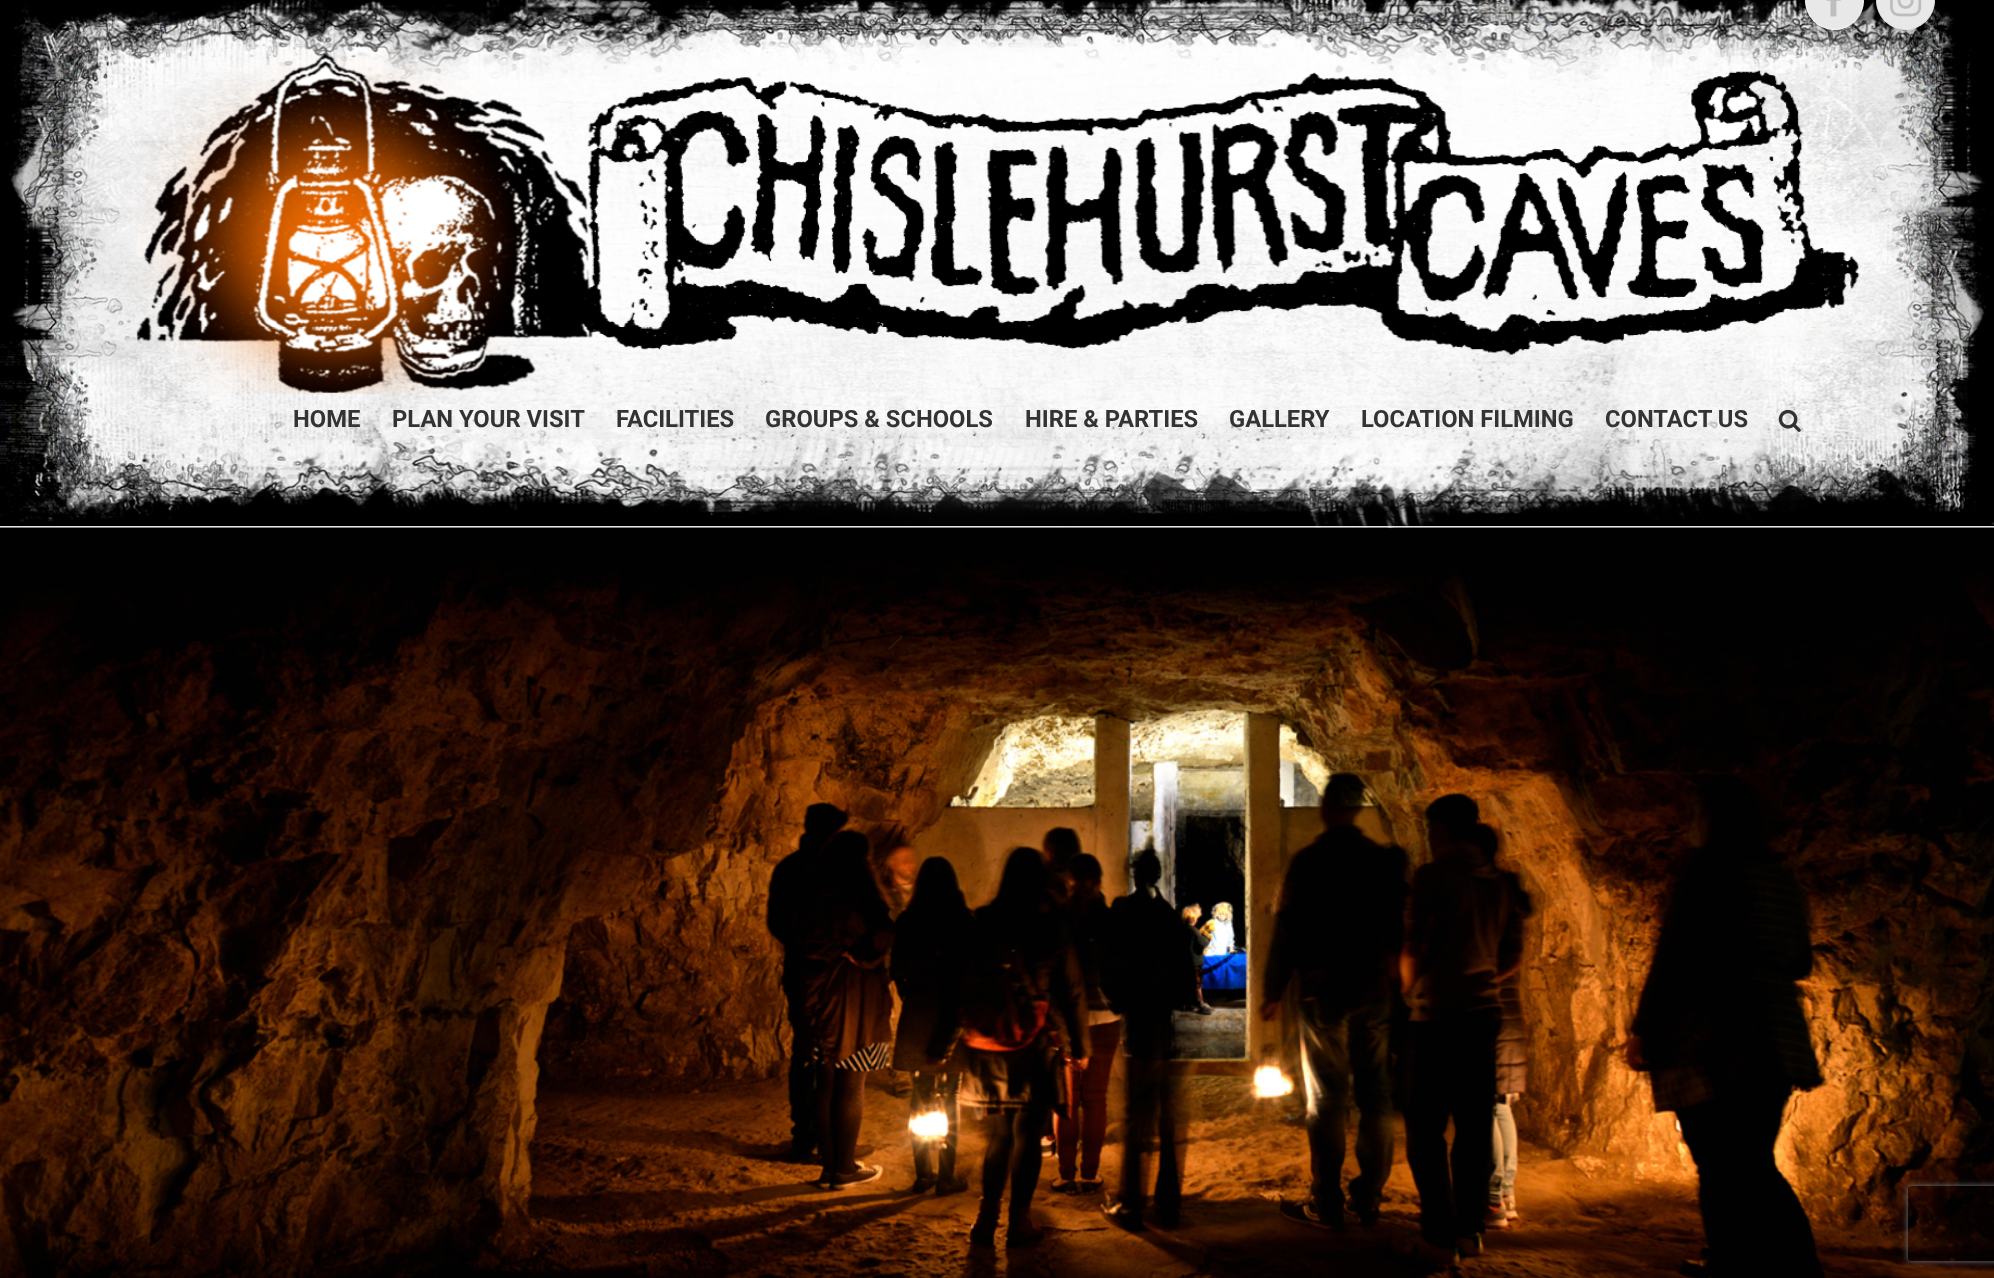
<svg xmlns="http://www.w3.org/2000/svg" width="1994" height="1278">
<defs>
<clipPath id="clip1"><path d="M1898 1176h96v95h-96zm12.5 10h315c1.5 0 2.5 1 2.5 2.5v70c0 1.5-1 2.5-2.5 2.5h-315c-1.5 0-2.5-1-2.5-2.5v-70c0-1.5 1-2.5 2.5-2.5z" clip-rule="evenodd"/></clipPath>
</defs>
<rect width="100%" height="100%" fill="#fff"/>
<image x="0" y="528" width="1994" height="750" href="media/6.png"/>
<image x="0" y="0" width="1994" height="529" href="media/3.png"/>
<circle cx="1834.5" cy="0.5" r="29" fill="#e8e8e8" stroke="#fff"/>
<image x="1826" y="0" width="15" height="17" href="media/1.png"/>
<circle cx="1905.5" cy="0.5" r="29" fill="#e8e8e8" stroke="#e8e8e8"/>
<image x="1890" y="0" width="32" height="17" href="media/2.png"/>
<rect y="526" width="1994" height="1" fill="#e5e5e5"/>
<image x="136" y="53" width="1724" height="341" href="media/4.png"/>
<text x="293" y="427" style="font-family:Roboto;font-size:23.75px;font-weight:bold;fill:#333">HOME</text>
<text x="392" y="427" style="font-family:Roboto;font-size:23.75px;font-weight:bold;fill:#333">PLAN YOUR VISIT</text>
<text x="616" y="427" style="font-family:Roboto;font-size:23.75px;font-weight:bold;fill:#333">FACILITIES</text>
<text x="765" y="427" style="font-family:Roboto;font-size:23.75px;font-weight:bold;fill:#333">GROUPS &amp; SCHOOLS</text>
<text x="1025" y="427" style="font-family:Roboto;font-size:23.75px;font-weight:bold;fill:#333">HIRE &amp; PARTIES</text>
<text x="1229" y="427" style="font-family:Roboto;font-size:23.75px;font-weight:bold;fill:#333">GALLERY</text>
<text x="1361" y="427" style="font-family:Roboto;font-size:23.75px;font-weight:bold;fill:#333">LOCATION FILMING</text>
<text x="1605" y="427" style="font-family:Roboto;font-size:23.75px;font-weight:bold;fill:#333">CONTACT US</text>
<image x="1778" y="409" width="23" height="23" href="media/5.png"/>
<g clip-path="url(#clip1)">
<rect x="1908" y="1186" width="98" height="75" rx="2.5" fill="#808080" filter="blur(3px)"/>
</g>
</svg>
